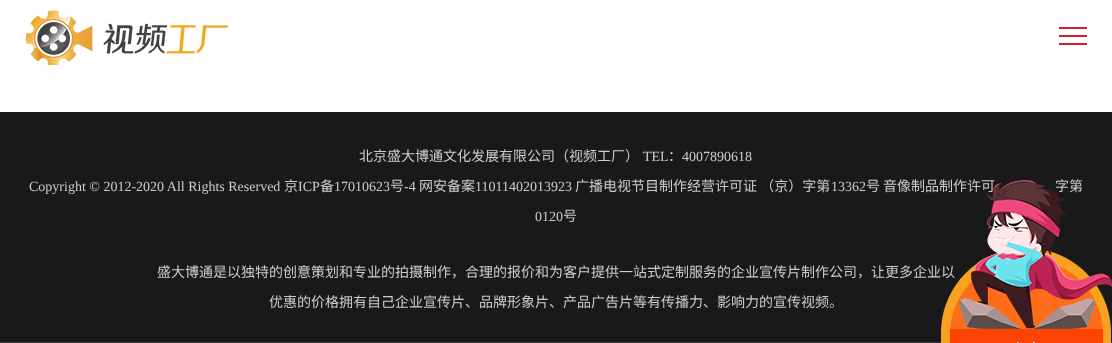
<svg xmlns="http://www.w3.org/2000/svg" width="1112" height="343">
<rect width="100%" height="100%" fill="#fff"/>
<image x="25" y="10" width="203" height="55" href="media/1.png"/>
<rect x="1059" y="35" width="28" height="2" fill="#d61e22"/>
<rect x="1059" y="27" width="28" height="2" fill="#d61e22"/>
<rect x="1059" y="43" width="28" height="2" fill="#d61e22"/>
<rect y="112" width="1112" height="230" fill="#191919"/>
<rect y="342" width="1112" height="1" fill="#3d3d3d"/>
<text x="359" y="161" style="font-family:Noto Sans CJK SC;font-size:14px;fill:#ccc">北京盛大博通文化发展有限公司（视频工厂）</text>
<text x="643" y="161" style="font-family:Liberation Serif;font-size:14px;fill:#ccc">TEL</text>
<text x="668" y="161" style="font-family:Noto Sans CJK SC;font-size:14px;fill:#ccc">：</text>
<text x="682" y="161" style="font-family:Liberation Serif;font-size:14px;fill:#ccc">4007890618</text>
<text x="29" y="191" style="font-family:Liberation Serif;font-size:14px;fill:#ccc">Copyright © 2012-2020 All Rights Reserved</text>
<text x="284" y="191" style="font-family:Noto Sans CJK SC;font-size:14px;fill:#ccc">京</text>
<text x="298" y="191" style="font-family:Liberation Serif;font-size:14px;fill:#ccc">ICP</text>
<text x="320" y="191" style="font-family:Noto Sans CJK SC;font-size:14px;fill:#ccc">备</text>
<text x="334" y="191" style="font-family:Liberation Serif;font-size:14px;fill:#ccc">17010623</text>
<text x="390" y="191" style="font-family:Noto Sans CJK SC;font-size:14px;fill:#ccc">号</text>
<text x="404" y="191" style="font-family:Liberation Serif;font-size:14px;fill:#ccc">-4</text>
<text x="419" y="191" style="font-family:Noto Sans CJK SC;font-size:14px;fill:#ccc">网安备案</text>
<text x="475" y="191" style="font-family:Liberation Serif;font-size:14px;fill:#ccc">11011402013923</text>
<text x="575" y="191" style="font-family:Noto Sans CJK SC;font-size:14px;fill:#ccc">广播电视节目制作经营许可证 （京）字第</text>
<text x="831" y="191" style="font-family:Liberation Serif;font-size:14px;fill:#ccc">13362</text>
<text x="866" y="191" style="font-family:Noto Sans CJK SC;font-size:14px;fill:#ccc">号</text>
<text x="883" y="191" style="font-family:Noto Sans CJK SC;font-size:14px;fill:#ccc">音像制品制作许可</text>
<text x="1055" y="191" style="font-family:Noto Sans CJK SC;font-size:14px;fill:#ccc">字第</text>
<text x="535" y="221" style="font-family:Liberation Serif;font-size:14px;fill:#ccc">0120</text>
<text x="563" y="221" style="font-family:Noto Sans CJK SC;font-size:14px;fill:#ccc">号</text>
<text x="157" y="277" style="font-family:Noto Sans CJK SC;font-size:14px;fill:#ccc">盛大博通是以独特的创意策划和专业的拍摄制作，合理的报价和为客户提供一站式定制服务的企业宣传片制作公司，让更多企业以</text>
<text x="269" y="307" style="font-family:Noto Sans CJK SC;font-size:14px;fill:#ccc">优惠的价格拥有自己企业宣传片、品牌形象片、产品广告片等有传播力、影响力的宣传视频。</text>
<image x="941" y="180" width="171" height="163" href="media/2.png"/>
</svg>
